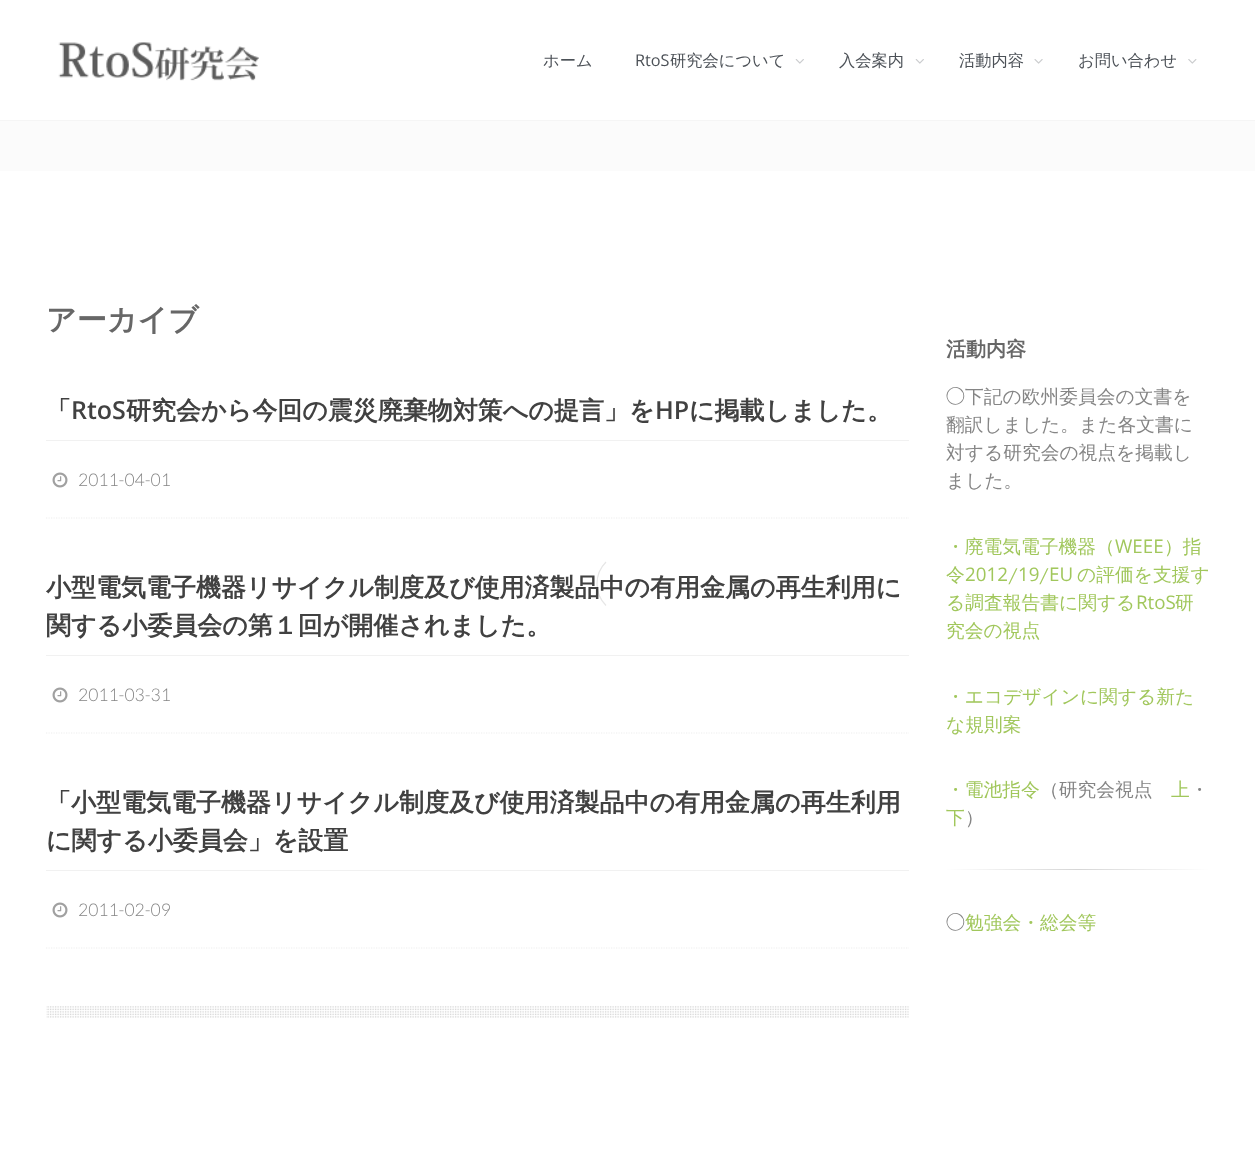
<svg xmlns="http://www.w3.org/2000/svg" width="1255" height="1167">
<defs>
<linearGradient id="g1" gradientUnits="userSpaceOnUse" x1="946" y1="869" x2="1209" y2="869"><stop offset="0" stop-color="#fff"/><stop offset="0.5" stop-color="#d6d6d6"/><stop offset="1" stop-color="#fff"/></linearGradient>
</defs>
<rect width="100%" height="100%" fill="#fff"/>
<rect y="120" width="1255" height="1" fill="#f5f5f5"/>
<image x="58" y="42" width="201" height="39" href="media/1.png"/>
<text x="543" y="66" style="font-family:WenQuanYi Zen Hei;font-size:16.25px;font-weight:500;fill:#4c5157">ホーム</text>
<text x="635" y="66" style="font-family:Open Sans;font-size:16.25px;fill:#4c5157">RtoS</text>
<text x="670" y="66" style="font-family:WenQuanYi Zen Hei;font-size:16.25px;font-weight:500;fill:#4c5157">研究会について</text>
<image x="795" y="59" width="9" height="5" href="media/2.png"/>
<text x="839" y="66" style="font-family:WenQuanYi Zen Hei;font-size:16.25px;font-weight:500;fill:#4c5157">入会案内</text>
<image x="915" y="59" width="9" height="5" href="media/2.png"/>
<text x="959" y="66" style="font-family:WenQuanYi Zen Hei;font-size:16.25px;font-weight:500;fill:#4c5157">活動内容</text>
<image x="1034" y="59" width="9" height="5" href="media/3.png"/>
<text x="1078" y="66" style="font-family:WenQuanYi Zen Hei;font-size:16.25px;font-weight:500;fill:#4c5157">お問い合わせ</text>
<image x="1188" y="59" width="9" height="5" href="media/4.png"/>
<rect y="121" width="1255" height="50" fill="#fbfbfb"/>
<text x="46" y="330" style="font-family:WenQuanYi Zen Hei;font-size:30px;font-weight:bold;fill:#676767">アーカイブ</text>
<rect x="46" y="440" width="863" height="1" fill="#f1f1f1"/>
<text x="46" y="419" style="font-family:WenQuanYi Zen Hei;font-size:25px;font-weight:bold;fill:#414141">「</text>
<text x="71" y="419" style="font-family:Open Sans;font-size:25px;font-weight:600;fill:#414141">RtoS</text>
<text x="126" y="419" style="font-family:WenQuanYi Zen Hei;font-size:25px;font-weight:bold;fill:#414141">研究会から今回の震災廃棄物対策への提言」を</text>
<text x="655" y="419" style="font-family:Open Sans;font-size:25px;font-weight:600;fill:#414141">HP</text>
<text x="689" y="419" style="font-family:WenQuanYi Zen Hei;font-size:25px;font-weight:bold;fill:#414141">に掲載しました。</text>
<path d="M46 518h863" fill="none" stroke="#eee" stroke-width="1.2" stroke-dasharray="1.25 1.25"/>
<image x="52" y="472" width="16" height="16" href="media/5.png"/>
<text x="78" y="486" style="font-family:Lato;font-size:17.5px;font-weight:300;fill:#858585">2011-04-01</text>
<rect x="46" y="655" width="863" height="1" fill="#f1f1f1"/>
<text x="46" y="596" style="font-family:WenQuanYi Zen Hei;font-size:25px;font-weight:bold;fill:#414141">小型電気電子機器リサイクル制度及び使用済製品中の有用金属の再生利用に</text>
<text x="46" y="634" style="font-family:WenQuanYi Zen Hei;font-size:25px;font-weight:bold;fill:#414141">関する小委員会の第１回が開催されました。</text>
<path d="M46 733h863" fill="none" stroke="#eee" stroke-width="1.2" stroke-dasharray="1.25 1.25"/>
<image x="52" y="687" width="16" height="16" href="media/5.png"/>
<text x="78" y="701" style="font-family:Lato;font-size:17.5px;font-weight:300;fill:#858585">2011-03-31</text>
<rect x="46" y="870" width="863" height="1" fill="#f1f1f1"/>
<text x="46" y="811" style="font-family:WenQuanYi Zen Hei;font-size:25px;font-weight:bold;fill:#414141">「小型電気電子機器リサイクル制度及び使用済製品中の有用金属の再生利用</text>
<text x="46" y="849" style="font-family:WenQuanYi Zen Hei;font-size:25px;font-weight:bold;fill:#414141">に関する小委員会」を設置</text>
<path d="M46 948h863" fill="none" stroke="#eee" stroke-width="1.2" stroke-dasharray="1.25 1.25"/>
<image x="52" y="902" width="16" height="16" href="media/5.png"/>
<text x="78" y="916" style="font-family:Lato;font-size:17.5px;font-weight:300;fill:#858585">2011-02-09</text>
<image x="46" y="1006" width="863" height="12" href="media/6.png"/>
<text x="946" y="356" style="font-family:WenQuanYi Zen Hei;font-size:20px;font-weight:bold;fill:#676767">活動内容</text>
<text x="946" y="403" style="font-family:IPAPGothic;font-size:18.75px;fill:#858585">◯</text>
<text x="965" y="403" style="font-family:WenQuanYi Zen Hei;font-size:18.75px;font-weight:500;fill:#858585">下記の欧州委員会の文書を</text>
<text x="946" y="431" style="font-family:WenQuanYi Zen Hei;font-size:18.75px;font-weight:500;fill:#858585">翻訳しました。また各文書に</text>
<text x="946" y="459" style="font-family:WenQuanYi Zen Hei;font-size:18.75px;font-weight:500;fill:#858585">対する研究会の視点を掲載し</text>
<text x="946" y="487" style="font-family:WenQuanYi Zen Hei;font-size:18.75px;font-weight:500;fill:#858585">ました。</text>
<text x="946" y="553" style="font-family:WenQuanYi Zen Hei;font-size:18.75px;font-weight:500;fill:#a1c75c">・廃電気電子機器（</text>
<text x="1115" y="553" style="font-family:Open Sans;font-size:18.75px;fill:#a1c75c">WEEE</text>
<text x="1164" y="553" style="font-family:WenQuanYi Zen Hei;font-size:18.75px;font-weight:500;fill:#a1c75c">）指</text>
<text x="946" y="581" style="font-family:WenQuanYi Zen Hei;font-size:18.75px;font-weight:500;fill:#a1c75c">令</text>
<text x="965" y="581" style="font-family:Open Sans;font-size:18.75px;fill:#a1c75c">2012</text>
<text x="1008" y="581" style="font-family:WenQuanYi Zen Hei;font-size:18.75px;font-weight:500;fill:#a1c75c">/</text>
<text x="1018" y="581" style="font-family:Open Sans;font-size:18.75px;fill:#a1c75c">19</text>
<text x="1039" y="581" style="font-family:WenQuanYi Zen Hei;font-size:18.75px;font-weight:500;fill:#a1c75c">/</text>
<text x="1049" y="581" style="font-family:Open Sans;font-size:18.75px;fill:#a1c75c">EU</text>
<text x="1077" y="581" style="font-family:WenQuanYi Zen Hei;font-size:18.75px;font-weight:500;fill:#a1c75c">の評価を支援す</text>
<text x="946" y="609" style="font-family:WenQuanYi Zen Hei;font-size:18.75px;font-weight:500;fill:#a1c75c">る調査報告書に関する</text>
<text x="1136" y="609" style="font-family:Open Sans;font-size:18.75px;fill:#a1c75c">RtoS</text>
<text x="1175" y="609" style="font-family:WenQuanYi Zen Hei;font-size:18.75px;font-weight:500;fill:#a1c75c">研</text>
<text x="946" y="637" style="font-family:WenQuanYi Zen Hei;font-size:18.75px;font-weight:500;fill:#a1c75c">究会の視点</text>
<text x="946" y="703" style="font-family:WenQuanYi Zen Hei;font-size:18.75px;font-weight:500;fill:#a1c75c">・エコデザインに関する新た</text>
<text x="946" y="731" style="font-family:WenQuanYi Zen Hei;font-size:18.75px;font-weight:500;fill:#a1c75c">な規則案</text>
<text x="946" y="796" style="font-family:WenQuanYi Zen Hei;font-size:18.75px;font-weight:500;fill:#a1c75c">・電池指令</text>
<text x="1040" y="796" style="font-family:WenQuanYi Zen Hei;font-size:18.75px;font-weight:500;fill:#858585">（研究会視点</text>
<text x="1171" y="796" style="font-family:WenQuanYi Zen Hei;font-size:18.75px;font-weight:500;fill:#a1c75c">上</text>
<text x="1190" y="796" style="font-family:WenQuanYi Zen Hei;font-size:18.75px;font-weight:500;fill:#858585">・</text>
<text x="946" y="824" style="font-family:WenQuanYi Zen Hei;font-size:18.75px;font-weight:500;fill:#a1c75c">下</text>
<text x="965" y="824" style="font-family:WenQuanYi Zen Hei;font-size:18.75px;font-weight:500;fill:#858585">）</text>
<rect x="946" y="869" width="263" height="1" fill="url(#g1)"/>
<text x="946" y="929" style="font-family:IPAPGothic;font-size:18.75px;fill:#858585">◯</text>
<text x="965" y="929" style="font-family:WenQuanYi Zen Hei;font-size:18.75px;font-weight:500;fill:#a1c75c">勉強会・総会等</text>
<path d="M606 605.5c-12-12-12-31.5 0-43.5" fill="none" stroke="#0000001a" stroke-width="1.2"/>
</svg>
